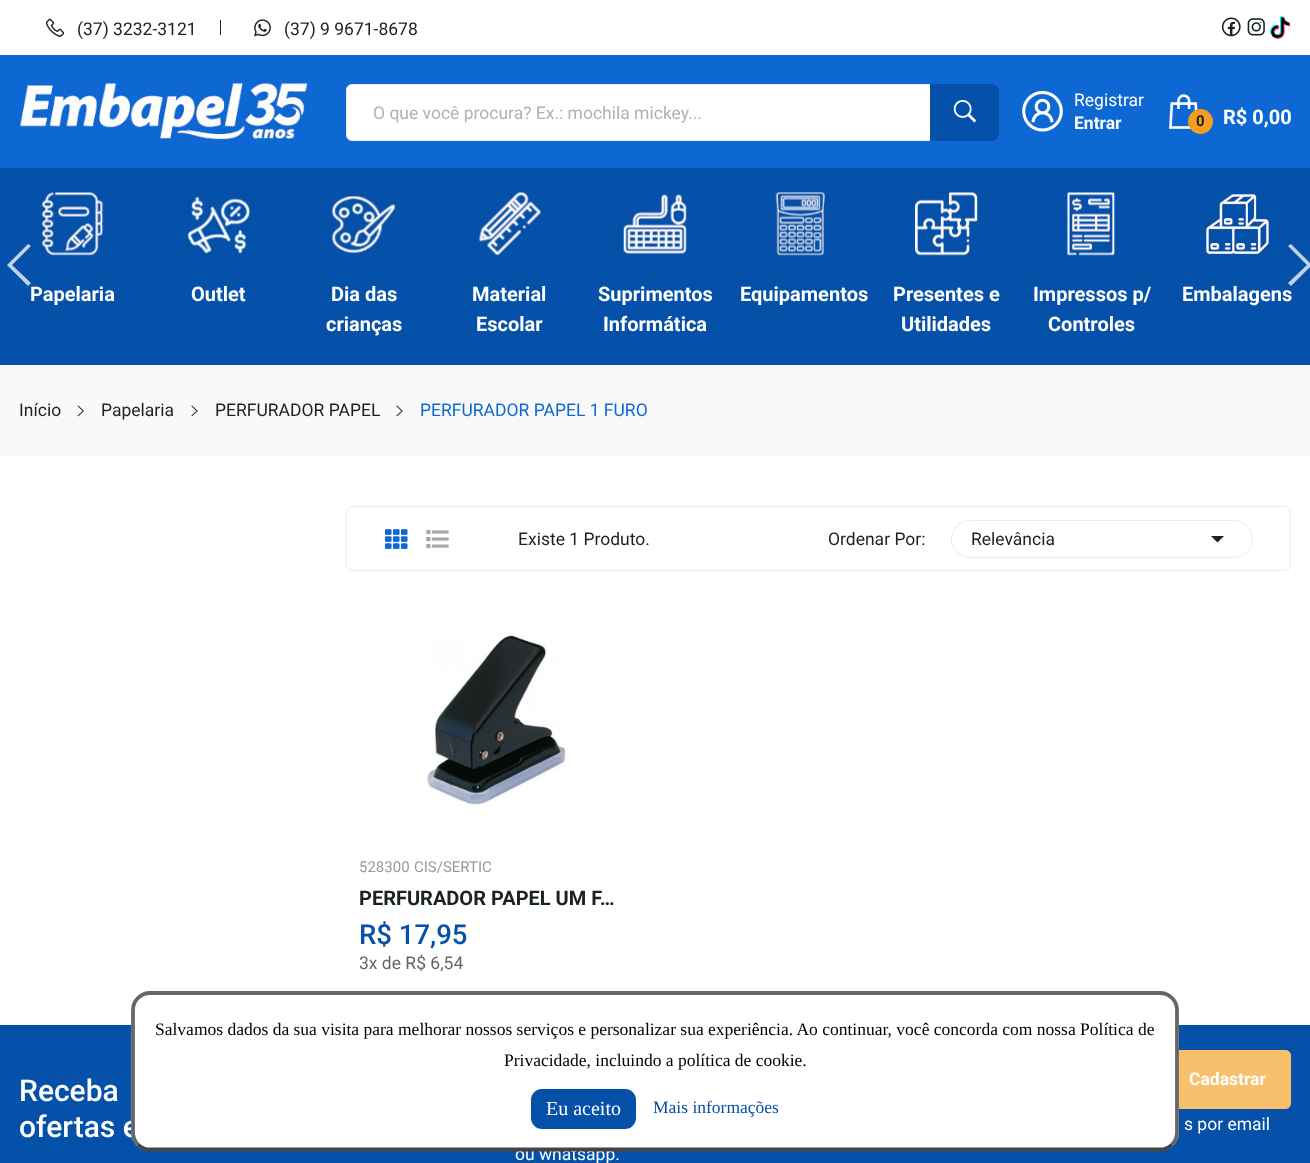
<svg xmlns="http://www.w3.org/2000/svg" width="1310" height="1163">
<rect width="100%" height="100%" fill="#fff"/>
<image x="45" y="18" width="20" height="19" href="media/1.png"/>
<text x="77" y="35" style="font-family:Roboto;font-size:17.5px;fill:#1a2225">(37) 3232-3121</text>
<rect x="220" y="20" width="1" height="15" fill="#1a2225"/>
<image x="254" y="19" width="17" height="18" href="media/2.png"/>
<text x="284" y="35" style="font-family:Roboto;font-size:17.5px;fill:#1a2225">(37) 9 9671-8678</text>
<image x="1221" y="17" width="20" height="20" href="media/3.png"/>
<image x="1247" y="18" width="18" height="18" href="media/4.png"/>
<image x="1269" y="16" width="21" height="23" href="media/5.png"/>
<rect y="55" width="1310" height="113" fill="#0e68d4"/>
<image x="19" y="82" width="290" height="58" href="media/6.png"/>
<rect x="346.5" y="84.5" width="652" height="56" rx="5.5" fill="#fff" stroke="#ebebeb"/>
<text x="373" y="119" style="font-family:Roboto;font-size:17.5px;fill:#b1b1b1">O que você procura? Ex.: mochila mickey...</text>
<path d="M930 84h63c3.5 0 6 2.5 6 6v45c0 3.5-2.5 6-6 6h-63z" fill="#0550a9"/>
<image x="953" y="100" width="24" height="23" href="media/7.png"/>
<image x="1022" y="90" width="41" height="42" href="media/8.png"/>
<text x="1074" y="106" style="font-family:Roboto;font-size:17.5px;fill:#fff">Registrar</text>
<text x="1074" y="129" style="font-family:Roboto;font-size:17.5px;font-weight:bold;fill:#fff">Entrar</text>
<image x="1169" y="94" width="29" height="35" href="media/9.png"/>
<circle cx="1200.5" cy="121.5" r="12.5" fill="#f59d1f"/>
<text x="1196" y="126" style="font-family:Roboto;font-size:15px;font-weight:bold;fill:#1a2225">0</text>
<text x="1223" y="124" style="font-family:Roboto;font-size:20px;font-weight:bold;fill:#fff">R$ 0,00</text>
<rect y="168" width="1310" height="197" fill="#0550a9"/>
<path d="M28 244l-21 21l21 21l3-3l-19-18l19-19z" fill="#c1d3ea"/>
<path d="M1291 244l-3 2l19 19l-19 18l3 3l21-21z" fill="#c1d3ea"/>
<image x="41" y="192" width="63" height="64" href="media/10.png"/>
<text x="30" y="301" style="font-family:Roboto;font-size:20px;font-weight:bold;fill:#fff">Papelaria</text>
<image x="187" y="196" width="64" height="58" href="media/11.png"/>
<text x="191" y="301" style="font-family:Roboto;font-size:20px;font-weight:bold;fill:#fff">Outlet</text>
<image x="332" y="195" width="64" height="58" href="media/12.png"/>
<text x="331" y="301" style="font-family:Roboto;font-size:20px;font-weight:bold;fill:#fff">Dia das</text>
<text x="326" y="331" style="font-family:Roboto;font-size:20px;font-weight:bold;fill:#fff">crianças</text>
<image x="478" y="192" width="64" height="64" href="media/13.png"/>
<text x="472" y="301" style="font-family:Roboto;font-size:20px;font-weight:bold;fill:#fff">Material</text>
<text x="476" y="331" style="font-family:Roboto;font-size:20px;font-weight:bold;fill:#fff">Escolar</text>
<image x="623" y="192" width="64" height="63" href="media/14.png"/>
<text x="598" y="301" style="font-family:Roboto;font-size:20px;font-weight:bold;fill:#fff">Suprimentos</text>
<text x="603" y="331" style="font-family:Roboto;font-size:20px;font-weight:bold;fill:#fff">Informática</text>
<image x="775" y="192" width="53" height="64" href="media/15.png"/>
<text x="740" y="301" style="font-family:Roboto;font-size:20px;font-weight:bold;fill:#fff">Equipamentos</text>
<image x="915" y="192" width="63" height="64" href="media/16.png"/>
<text x="893" y="301" style="font-family:Roboto;font-size:20px;font-weight:bold;fill:#fff">Presentes e</text>
<text x="901" y="331" style="font-family:Roboto;font-size:20px;font-weight:bold;fill:#fff">Utilidades</text>
<image x="1066" y="192" width="49" height="64" href="media/17.png"/>
<text x="1033" y="301" style="font-family:Roboto;font-size:20px;font-weight:bold;fill:#fff">Impressos p/</text>
<text x="1048" y="331" style="font-family:Roboto;font-size:20px;font-weight:bold;fill:#fff">Controles</text>
<image x="1206" y="192" width="63" height="63" href="media/18.png"/>
<text x="1182" y="301" style="font-family:Roboto;font-size:20px;font-weight:bold;fill:#fff">Embalagens</text>
<rect y="365" width="1310" height="91" fill="#f9f9f9"/>
<text x="19" y="416" style="font-family:Roboto;font-size:17.5px;fill:#1a2225">Início</text>
<image x="77" y="405" width="7" height="12" href="media/19.png"/>
<text x="101" y="416" style="font-family:Roboto;font-size:17.5px;fill:#1a2225">Papelaria</text>
<image x="191" y="405" width="7" height="12" href="media/20.png"/>
<text x="215" y="416" style="font-family:Roboto;font-size:17.5px;fill:#1a2225">PERFURADOR PAPEL</text>
<image x="396" y="405" width="7" height="12" href="media/20.png"/>
<text x="420" y="416" style="font-family:Roboto;font-size:17.5px;fill:#0e68d4">PERFURADOR PAPEL 1 FURO</text>
<rect x="346.5" y="506.5" width="944" height="64" rx="5.5" fill="none" stroke="#ebebeb"/>
<image x="385" y="529" width="23" height="20" href="media/21.png"/>
<image x="426" y="529" width="23" height="20" href="media/22.png"/>
<text x="518" y="545" style="font-family:Roboto;font-size:17.5px;fill:#1a2225">Existe 1 Produto.</text>
<text x="828" y="545" style="font-family:Roboto;font-size:17.5px;fill:#1a2225">Ordenar Por:</text>
<rect x="951.5" y="520.5" width="301" height="37" rx="18.5" fill="none" stroke="#ebebeb"/>
<text x="971" y="545" style="font-family:Roboto;font-size:17.5px;fill:#1a2225">Relevância</text>
<path d="M1211 536h13l-6.5 6.5z" fill="#1a2225"/>
<image x="426" y="635" width="140" height="174" href="media/23.png"/>
<text x="359" y="872" style="font-family:Roboto;font-size:15px;fill:#999">528300</text>
<text x="414" y="872" style="font-family:Roboto;font-size:15px;fill:#999">CIS/SERTIC</text>
<text x="359" y="905" style="font-family:Roboto;font-size:20px;font-weight:bold;fill:#1a2225">PERFURADOR PAPEL UM F…</text>
<text x="359" y="944" style="font-family:Roboto;font-size:27.5px;font-weight:500;fill:#0550a9">R$ 17,95</text>
<text x="359" y="969" style="font-family:Roboto;font-size:17.5px;fill:#666">3x de R$ 6,54</text>
<rect y="1025" width="1310" height="138" fill="#0550a9"/>
<text x="19" y="1101" style="font-family:Roboto;font-size:30px;font-weight:500;fill:#fff">Receba</text>
<text x="19" y="1137" style="font-family:Roboto;font-size:30px;font-weight:500;fill:#fff">ofertas e</text>
<rect x="515" y="1050" width="776" height="59" rx="6" fill="#fff"/>
<path d="M1165 1050h120c3.5 0 6 2.5 6 6v47c0 3.5-2.5 6-6 6h-120z" fill="#f59d1fa6"/>
<text x="1189" y="1085" style="font-family:Roboto;font-size:17.5px;font-weight:bold;fill:#fff">Cadastrar</text>
<text x="1184" y="1130" style="font-family:Roboto;font-size:17.5px;fill:#fff">s por email</text>
<text x="515" y="1160" style="font-family:Roboto;font-size:17.5px;fill:#fff">ou whatsapp.</text>
<rect x="131" y="991" width="1048" height="160" rx="19" fill="#fff"/>
<path d="M1172 1144.5c-3 3-7.5 5-12 5h-1010c-4.5 0-9-2-12-5" fill="none" stroke="#444" stroke-width="3.8"/>
<path d="M138 1144.5c-3-3-5-7.5-5-12v-122.5c0-4.5 2-9 5-12c3-3 7.5-5 12-5h1010c4.5 0 9 2 12 5c3 3 5 7.5 5 12v122.5c0 4.5-2 9-5 12" fill="none" stroke="#666" stroke-width="3.8"/>
<text x="155" y="1035" style="font-family:Liberation Serif;font-size:17.5px;fill:#000">Salvamos dados da sua visita para melhorar nossos serviços e personalizar sua experiência. Ao continuar, você concorda com nossa Política de</text>
<text x="504" y="1066" style="font-family:Liberation Serif;font-size:17.5px;fill:#000">Privacidade, incluindo a política de cookie.</text>
<rect x="531" y="1089" width="105" height="40" rx="11" fill="#0550a9"/>
<text x="546" y="1115" style="font-family:Liberation Serif;font-size:20px;fill:#fff">Eu aceito</text>
<text x="653" y="1113" style="font-family:Liberation Serif;font-size:17.5px;fill:#0550a9">Mais informações</text>
</svg>
